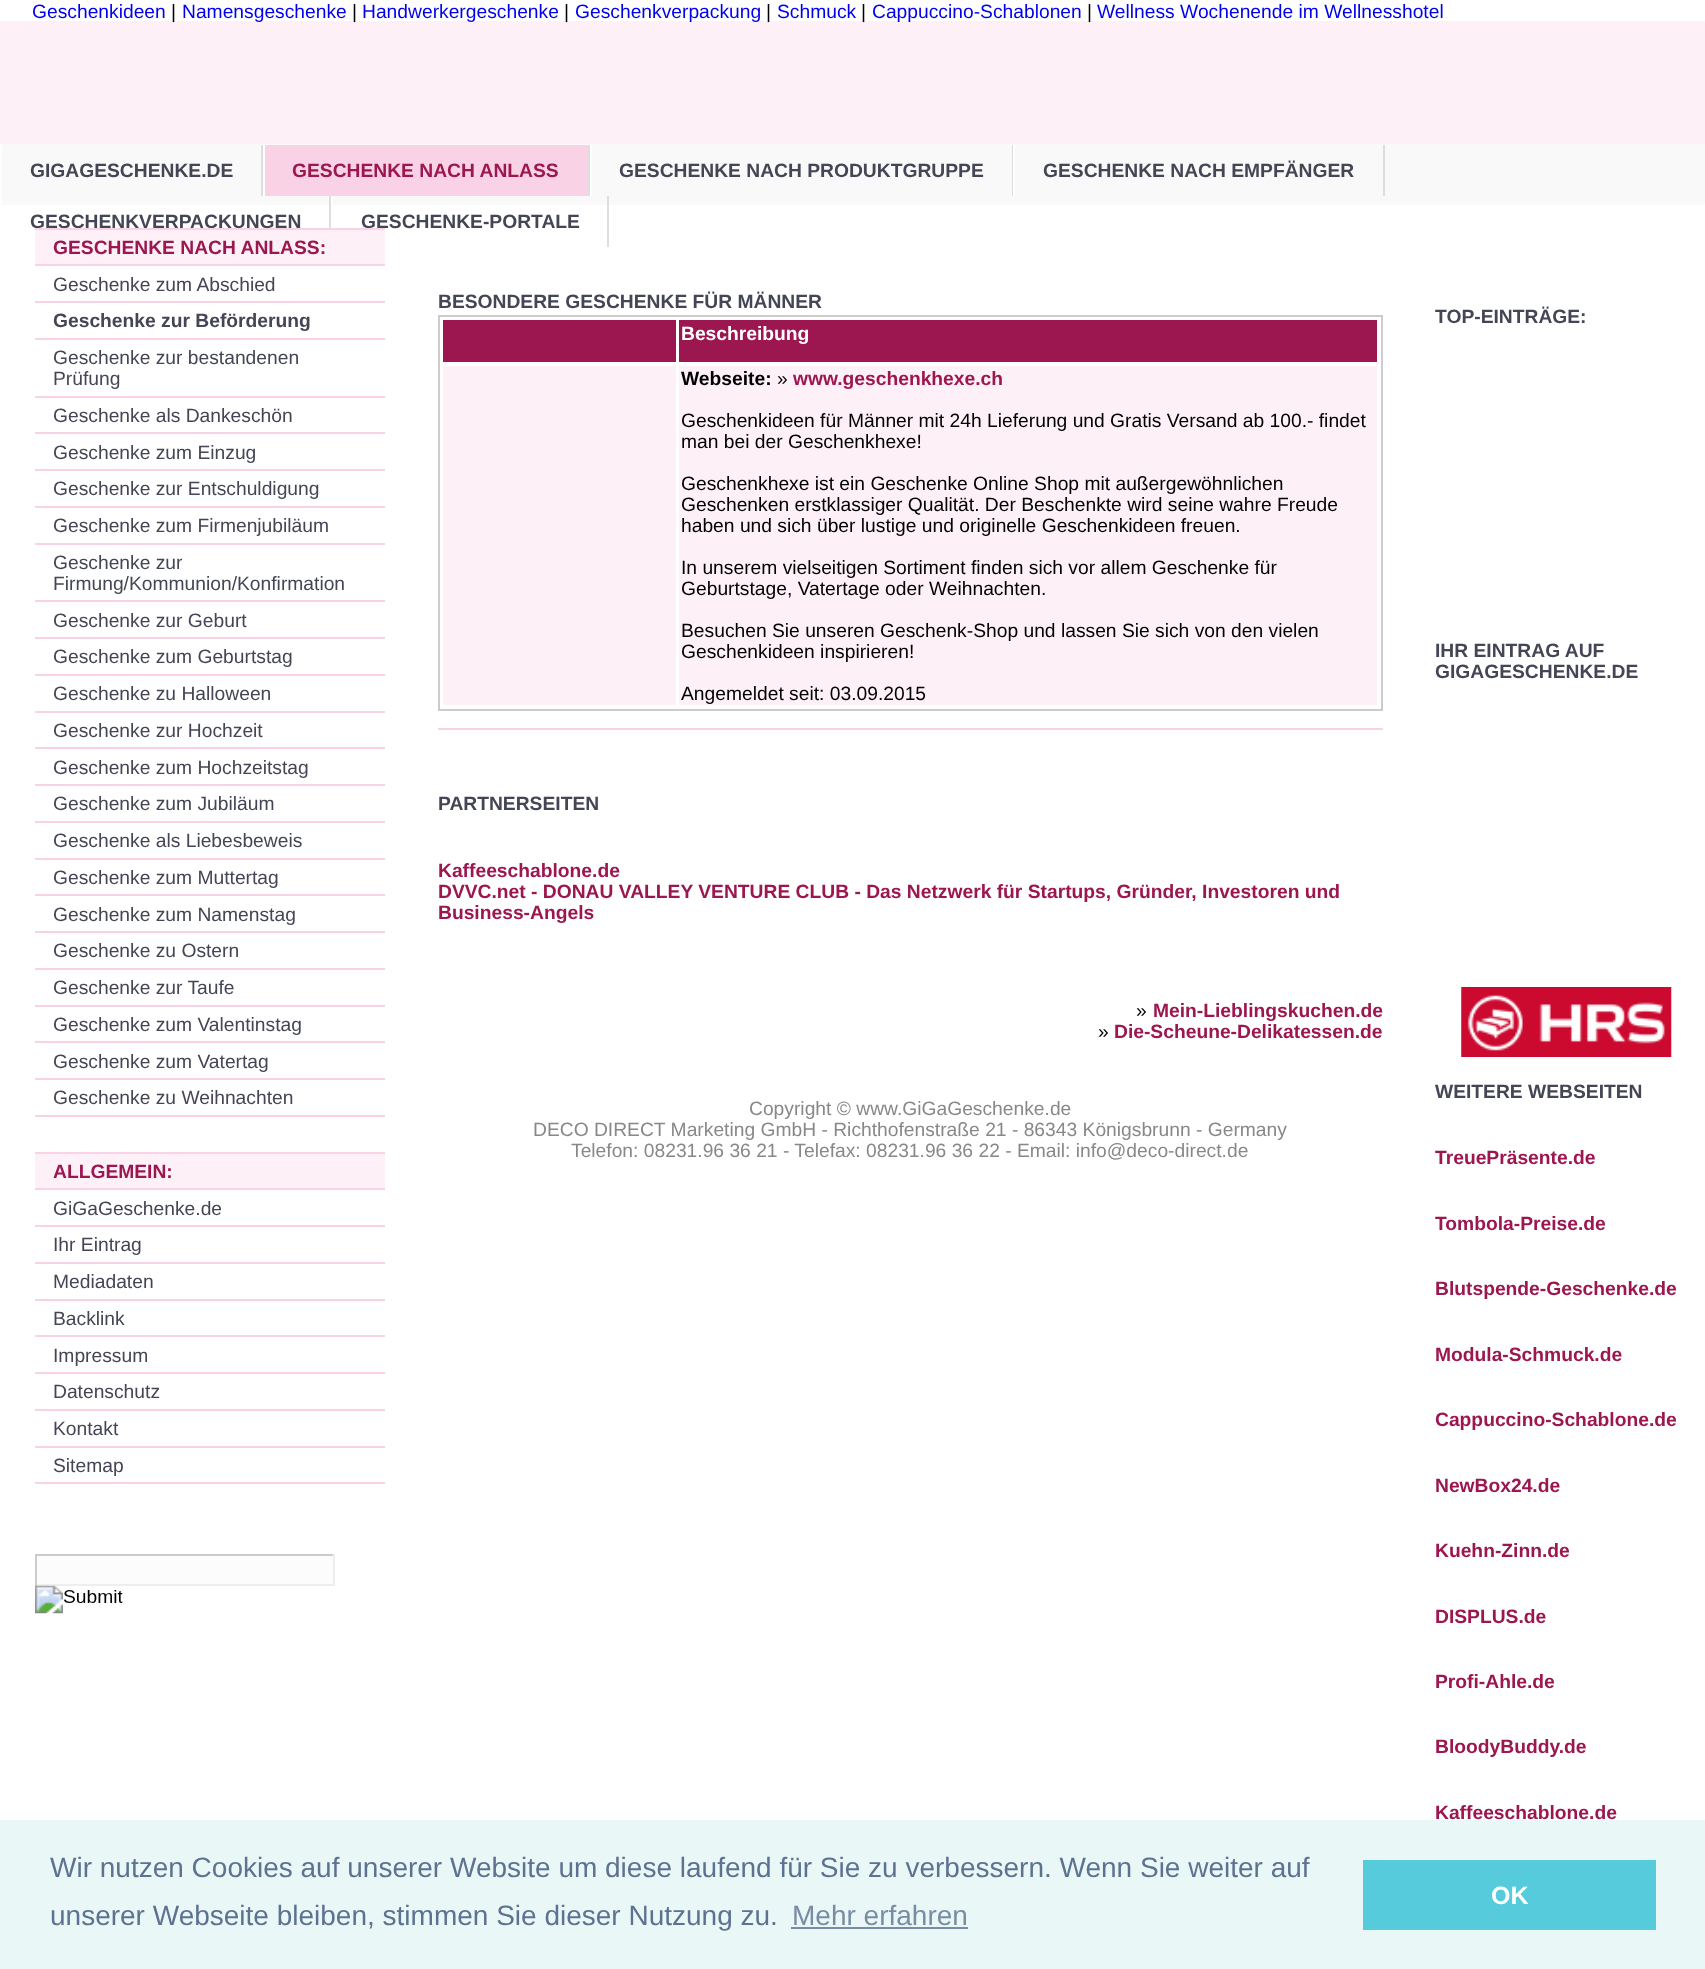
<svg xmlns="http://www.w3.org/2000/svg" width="1705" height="1969">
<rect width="100%" height="100%" fill="#fff"/>
<text x="32" y="18" style="font-family:Liberation Sans;font-size:19.25px;fill:#00e">Geschenkideen</text>
<rect y="21" width="1705" height="123" fill="#fdf1f7"/>
<text x="171" y="18" style="font-family:Liberation Sans;font-size:19.25px;fill:#000">|</text>
<text x="182" y="18" style="font-family:Liberation Sans;font-size:19.25px;fill:#00e">Namensgeschenke</text>
<text x="352" y="18" style="font-family:Liberation Sans;font-size:19.25px;fill:#000">|</text>
<text x="362" y="18" style="font-family:Liberation Sans;font-size:19.25px;fill:#00e">Handwerkergeschenke</text>
<text x="564" y="18" style="font-family:Liberation Sans;font-size:19.25px;fill:#000">|</text>
<text x="575" y="18" style="font-family:Liberation Sans;font-size:19.25px;fill:#00e">Geschenkverpackung</text>
<text x="766" y="18" style="font-family:Liberation Sans;font-size:19.25px;fill:#000">|</text>
<text x="777" y="18" style="font-family:Liberation Sans;font-size:19.25px;fill:#00e">Schmuck</text>
<text x="861" y="18" style="font-family:Liberation Sans;font-size:19.25px;fill:#000">|</text>
<text x="872" y="18" style="font-family:Liberation Sans;font-size:19.25px;fill:#00e">Cappuccino-Schablonen</text>
<text x="1087" y="18" style="font-family:Liberation Sans;font-size:19.25px;fill:#000">|</text>
<text x="1097" y="18" style="font-family:Liberation Sans;font-size:19.25px;fill:#00e">Wellness Wochenende im Wellnesshotel</text>
<rect y="144" width="1705" height="61" fill="#f9f9f9"/>
<rect x="261" y="145" width="2" height="51" fill="#dedede"/>
<rect y="145" width="2" height="60" fill="#fdfdfd"/>
<text x="30" y="177" style="font-family:Liberation Sans;font-size:19.25px;font-weight:bold;fill:#444655">GIGAGESCHENKE.DE</text>
<rect x="265" y="145" width="323" height="51" fill="#f9d2e6"/>
<rect x="588" y="145" width="2" height="51" fill="#dedede"/>
<rect x="263" y="145" width="2" height="51" fill="#fdfdfd"/>
<text x="292" y="177" style="font-family:Liberation Sans;font-size:19.25px;font-weight:bold;fill:#9c1750">GESCHENKE NACH ANLASS</text>
<rect x="1012" y="145" width="1" height="51" fill="#dedede"/>
<rect x="590" y="145" width="2" height="51" fill="#fdfdfd"/>
<text x="619" y="177" style="font-family:Liberation Sans;font-size:19.25px;font-weight:bold;fill:#444655">GESCHENKE NACH PRODUKTGRUPPE</text>
<rect x="1383" y="145" width="2" height="51" fill="#dedede"/>
<rect x="1013" y="145" width="2" height="51" fill="#fdfdfd"/>
<text x="1043" y="177" style="font-family:Liberation Sans;font-size:19.25px;font-weight:bold;fill:#444655">GESCHENKE NACH EMPFÄNGER</text>
<rect x="329" y="196" width="2" height="32" fill="#dedede"/>
<text x="30" y="228" style="font-family:Liberation Sans;font-size:19.25px;font-weight:bold;fill:#444655">GESCHENKVERPACKUNGEN</text>
<rect x="607" y="196" width="2" height="51" fill="#dedede"/>
<rect x="331" y="196" width="2" height="9" fill="#fdfdfd"/>
<text x="361" y="228" style="font-family:Liberation Sans;font-size:19.25px;font-weight:bold;fill:#444655">GESCHENKE-PORTALE</text>
<rect x="35" y="230" width="350" height="34" fill="#fdf1f7"/>
<rect x="35" y="228" width="350" height="2" fill="#f9d2e6"/>
<rect x="35" y="264" width="350" height="2" fill="#f9d2e6"/>
<text x="53" y="254" style="font-family:Liberation Sans;font-size:19.25px;font-weight:bold;fill:#9c1750">GESCHENKE NACH ANLASS:</text>
<rect x="35" y="301" width="350" height="2" fill="#f9d2e6"/>
<text x="53" y="291" style="font-family:Liberation Sans;font-size:19.25px;fill:#444655">Geschenke zum Abschied</text>
<rect x="35" y="338" width="350" height="2" fill="#f9d2e6"/>
<text x="53" y="327" style="font-family:Liberation Sans;font-size:19.25px;font-weight:bold;fill:#444655">Geschenke zur Beförderung</text>
<rect x="35" y="396" width="350" height="2" fill="#f9d2e6"/>
<text x="53" y="364" style="font-family:Liberation Sans;font-size:19.25px;fill:#444655">Geschenke zur bestandenen</text>
<text x="53" y="385" style="font-family:Liberation Sans;font-size:19.25px;fill:#444655">Prüfung</text>
<rect x="35" y="432" width="350" height="2" fill="#f9d2e6"/>
<text x="53" y="422" style="font-family:Liberation Sans;font-size:19.25px;fill:#444655">Geschenke als Dankeschön</text>
<rect x="35" y="469" width="350" height="2" fill="#f9d2e6"/>
<text x="53" y="459" style="font-family:Liberation Sans;font-size:19.25px;fill:#444655">Geschenke zum Einzug</text>
<rect x="35" y="506" width="350" height="2" fill="#f9d2e6"/>
<text x="53" y="495" style="font-family:Liberation Sans;font-size:19.25px;fill:#444655">Geschenke zur Entschuldigung</text>
<rect x="35" y="543" width="350" height="2" fill="#f9d2e6"/>
<text x="53" y="532" style="font-family:Liberation Sans;font-size:19.25px;fill:#444655">Geschenke zum Firmenjubiläum</text>
<rect x="35" y="600" width="350" height="2" fill="#f9d2e6"/>
<text x="53" y="569" style="font-family:Liberation Sans;font-size:19.25px;fill:#444655">Geschenke zur</text>
<text x="53" y="590" style="font-family:Liberation Sans;font-size:19.25px;fill:#444655">Firmung/Kommunion/Konfirmation</text>
<rect x="35" y="637" width="350" height="2" fill="#f9d2e6"/>
<text x="53" y="627" style="font-family:Liberation Sans;font-size:19.25px;fill:#444655">Geschenke zur Geburt</text>
<rect x="35" y="674" width="350" height="2" fill="#f9d2e6"/>
<text x="53" y="663" style="font-family:Liberation Sans;font-size:19.25px;fill:#444655">Geschenke zum Geburtstag</text>
<rect x="35" y="711" width="350" height="2" fill="#f9d2e6"/>
<text x="53" y="700" style="font-family:Liberation Sans;font-size:19.25px;fill:#444655">Geschenke zu Halloween</text>
<rect x="35" y="747" width="350" height="2" fill="#f9d2e6"/>
<text x="53" y="737" style="font-family:Liberation Sans;font-size:19.25px;fill:#444655">Geschenke zur Hochzeit</text>
<rect x="35" y="784" width="350" height="2" fill="#f9d2e6"/>
<text x="53" y="774" style="font-family:Liberation Sans;font-size:19.25px;fill:#444655">Geschenke zum Hochzeitstag</text>
<rect x="35" y="821" width="350" height="2" fill="#f9d2e6"/>
<text x="53" y="810" style="font-family:Liberation Sans;font-size:19.25px;fill:#444655">Geschenke zum Jubiläum</text>
<rect x="35" y="858" width="350" height="2" fill="#f9d2e6"/>
<text x="53" y="847" style="font-family:Liberation Sans;font-size:19.25px;fill:#444655">Geschenke als Liebesbeweis</text>
<rect x="35" y="894" width="350" height="2" fill="#f9d2e6"/>
<text x="53" y="884" style="font-family:Liberation Sans;font-size:19.25px;fill:#444655">Geschenke zum Muttertag</text>
<rect x="35" y="931" width="350" height="2" fill="#f9d2e6"/>
<text x="53" y="921" style="font-family:Liberation Sans;font-size:19.25px;fill:#444655">Geschenke zum Namenstag</text>
<rect x="35" y="968" width="350" height="2" fill="#f9d2e6"/>
<text x="53" y="957" style="font-family:Liberation Sans;font-size:19.25px;fill:#444655">Geschenke zu Ostern</text>
<rect x="35" y="1005" width="350" height="2" fill="#f9d2e6"/>
<text x="53" y="994" style="font-family:Liberation Sans;font-size:19.25px;fill:#444655">Geschenke zur Taufe</text>
<rect x="35" y="1041" width="350" height="2" fill="#f9d2e6"/>
<text x="53" y="1031" style="font-family:Liberation Sans;font-size:19.25px;fill:#444655">Geschenke zum Valentinstag</text>
<rect x="35" y="1078" width="350" height="2" fill="#f9d2e6"/>
<text x="53" y="1068" style="font-family:Liberation Sans;font-size:19.25px;fill:#444655">Geschenke zum Vatertag</text>
<rect x="35" y="1115" width="350" height="2" fill="#f9d2e6"/>
<text x="53" y="1104" style="font-family:Liberation Sans;font-size:19.25px;fill:#444655">Geschenke zu Weihnachten</text>
<rect x="35" y="1154" width="350" height="34" fill="#fdf1f7"/>
<rect x="35" y="1152" width="350" height="2" fill="#f9d2e6"/>
<rect x="35" y="1188" width="350" height="2" fill="#f9d2e6"/>
<text x="53" y="1178" style="font-family:Liberation Sans;font-size:19.25px;font-weight:bold;fill:#9c1750">ALLGEMEIN:</text>
<rect x="35" y="1225" width="350" height="2" fill="#f9d2e6"/>
<text x="53" y="1215" style="font-family:Liberation Sans;font-size:19.25px;fill:#444655">GiGaGeschenke.de</text>
<rect x="35" y="1262" width="350" height="2" fill="#f9d2e6"/>
<text x="53" y="1251" style="font-family:Liberation Sans;font-size:19.25px;fill:#444655">Ihr Eintrag</text>
<rect x="35" y="1299" width="350" height="2" fill="#f9d2e6"/>
<text x="53" y="1288" style="font-family:Liberation Sans;font-size:19.25px;fill:#444655">Mediadaten</text>
<rect x="35" y="1335" width="350" height="2" fill="#f9d2e6"/>
<text x="53" y="1325" style="font-family:Liberation Sans;font-size:19.25px;fill:#444655">Backlink</text>
<rect x="35" y="1372" width="350" height="2" fill="#f9d2e6"/>
<text x="53" y="1362" style="font-family:Liberation Sans;font-size:19.25px;fill:#444655">Impressum</text>
<rect x="35" y="1409" width="350" height="2" fill="#f9d2e6"/>
<text x="53" y="1398" style="font-family:Liberation Sans;font-size:19.25px;fill:#444655">Datenschutz</text>
<rect x="35" y="1446" width="350" height="2" fill="#f9d2e6"/>
<text x="53" y="1435" style="font-family:Liberation Sans;font-size:19.25px;fill:#444655">Kontakt</text>
<rect x="35" y="1482" width="350" height="2" fill="#f9d2e6"/>
<text x="53" y="1472" style="font-family:Liberation Sans;font-size:19.25px;fill:#444655">Sitemap</text>
<rect x="37" y="1556" width="296" height="28" fill="#fcfcfc"/>
<rect x="35" y="1554" width="299" height="2" fill="#ccc"/>
<rect x="333" y="1554" width="2" height="32" fill="#eee"/>
<rect x="35" y="1584" width="299" height="2" fill="#eee"/>
<rect x="35" y="1554" width="2" height="32" fill="#ccc"/>
<image x="35" y="1585" width="88" height="29" href="media/1.png"/>
<text x="438" y="308" style="font-family:Liberation Sans;font-size:19.25px;font-weight:bold;fill:#444655">BESONDERE GESCHENKE FÜR MÄNNER</text>
<rect x="439" y="316" width="943" height="394" fill="none" stroke="#ccc" stroke-width="2"/>
<rect x="443" y="320" width="233" height="42" fill="#9c1750"/>
<rect x="679" y="320" width="698" height="42" fill="#9c1750"/>
<text x="681" y="340" style="font-family:Liberation Sans;font-size:19.25px;font-weight:bold;fill:#fff">Beschreibung</text>
<rect x="443" y="366" width="233" height="339" fill="#fdf1f7"/>
<rect x="679" y="366" width="698" height="339" fill="#fdf1f7"/>
<text x="681" y="385" style="font-family:Liberation Sans;font-size:19.25px;font-weight:bold;fill:#000">Webseite:</text>
<text x="777" y="385" style="font-family:Liberation Sans;font-size:19.25px;fill:#000">»</text>
<text x="793" y="385" style="font-family:Liberation Sans;font-size:19.25px;font-weight:bold;fill:#9c1750">www.geschenkhexe.ch</text>
<text x="681" y="427" style="font-family:Liberation Sans;font-size:19.25px;fill:#000">Geschenkideen für Männer mit 24h Lieferung und Gratis Versand ab 100.- findet</text>
<text x="681" y="448" style="font-family:Liberation Sans;font-size:19.25px;fill:#000">man bei der Geschenkhexe!</text>
<text x="681" y="490" style="font-family:Liberation Sans;font-size:19.25px;fill:#000">Geschenkhexe ist ein Geschenke Online Shop mit außergewöhnlichen</text>
<text x="681" y="511" style="font-family:Liberation Sans;font-size:19.25px;fill:#000">Geschenken erstklassiger Qualität. Der Beschenkte wird seine wahre Freude</text>
<text x="681" y="532" style="font-family:Liberation Sans;font-size:19.25px;fill:#000">haben und sich über lustige und originelle Geschenkideen freuen.</text>
<text x="681" y="574" style="font-family:Liberation Sans;font-size:19.25px;fill:#000">In unserem vielseitigen Sortiment finden sich vor allem Geschenke für</text>
<text x="681" y="595" style="font-family:Liberation Sans;font-size:19.25px;fill:#000">Geburtstage, Vatertage oder Weihnachten.</text>
<text x="681" y="637" style="font-family:Liberation Sans;font-size:19.25px;fill:#000">Besuchen Sie unseren Geschenk-Shop und lassen Sie sich von den vielen</text>
<text x="681" y="658" style="font-family:Liberation Sans;font-size:19.25px;fill:#000">Geschenkideen inspirieren!</text>
<text x="681" y="700" style="font-family:Liberation Sans;font-size:19.25px;fill:#000">Angemeldet seit: 03.09.2015</text>
<rect x="438" y="728" width="945" height="2" fill="#f9d2e6"/>
<text x="438" y="810" style="font-family:Liberation Sans;font-size:19.25px;font-weight:bold;fill:#444655">PARTNERSEITEN</text>
<text x="438" y="877" style="font-family:Liberation Sans;font-size:19.25px;font-weight:bold;fill:#9c1750">Kaffeeschablone.de</text>
<text x="438" y="898" style="font-family:Liberation Sans;font-size:19.25px;font-weight:bold;fill:#9c1750">DVVC.net - DONAU VALLEY VENTURE CLUB - Das Netzwerk für Startups, Gründer, Investoren und</text>
<text x="438" y="919" style="font-family:Liberation Sans;font-size:19.25px;font-weight:bold;fill:#9c1750">Business-Angels</text>
<text x="1136" y="1017" style="font-family:Liberation Sans;font-size:19.25px;fill:#000">»</text>
<text x="1153" y="1017" style="font-family:Liberation Sans;font-size:19.25px;font-weight:bold;fill:#9c1750">Mein-Lieblingskuchen.de</text>
<text x="1098" y="1038" style="font-family:Liberation Sans;font-size:19.25px;fill:#000">»</text>
<text x="1114" y="1038" style="font-family:Liberation Sans;font-size:19.25px;font-weight:bold;fill:#9c1750">Die-Scheune-Delikatessen.de</text>
<text x="749" y="1115" style="font-family:Liberation Sans;font-size:19.25px;fill:#888">Copyright © www.GiGaGeschenke.de</text>
<text x="533" y="1136" style="font-family:Liberation Sans;font-size:19.25px;fill:#888">DECO DIRECT Marketing GmbH - Richthofenstraße 21 - 86343 Königsbrunn - Germany</text>
<text x="571" y="1157" style="font-family:Liberation Sans;font-size:19.25px;fill:#888">Telefon: 08231.96 36 21 - Telefax: 08231.96 36 22 - Email: info@deco-direct.de</text>
<text x="1435" y="323" style="font-family:Liberation Sans;font-size:19.25px;font-weight:bold;fill:#444655">TOP-EINTRÄGE:</text>
<text x="1435" y="657" style="font-family:Liberation Sans;font-size:19.25px;font-weight:bold;fill:#444655">IHR EINTRAG AUF</text>
<text x="1435" y="678" style="font-family:Liberation Sans;font-size:19.25px;font-weight:bold;fill:#444655">GIGAGESCHENKE.DE</text>
<image x="1461" y="987" width="211" height="70" href="media/2.png"/>
<text x="1435" y="1098" style="font-family:Liberation Sans;font-size:19.25px;font-weight:bold;fill:#444655">WEITERE WEBSEITEN</text>
<text x="1435" y="1164" style="font-family:Liberation Sans;font-size:19.25px;font-weight:bold;fill:#9c1750">TreuePräsente.de</text>
<text x="1435" y="1230" style="font-family:Liberation Sans;font-size:19.25px;font-weight:bold;fill:#9c1750">Tombola-Preise.de</text>
<text x="1435" y="1295" style="font-family:Liberation Sans;font-size:19.25px;font-weight:bold;fill:#9c1750">Blutspende-Geschenke.de</text>
<text x="1435" y="1361" style="font-family:Liberation Sans;font-size:19.25px;font-weight:bold;fill:#9c1750">Modula-Schmuck.de</text>
<text x="1435" y="1426" style="font-family:Liberation Sans;font-size:19.25px;font-weight:bold;fill:#9c1750">Cappuccino-Schablone.de</text>
<text x="1435" y="1492" style="font-family:Liberation Sans;font-size:19.25px;font-weight:bold;fill:#9c1750">NewBox24.de</text>
<text x="1435" y="1557" style="font-family:Liberation Sans;font-size:19.25px;font-weight:bold;fill:#9c1750">Kuehn-Zinn.de</text>
<text x="1435" y="1623" style="font-family:Liberation Sans;font-size:19.25px;font-weight:bold;fill:#9c1750">DISPLUS.de</text>
<text x="1435" y="1688" style="font-family:Liberation Sans;font-size:19.25px;font-weight:bold;fill:#9c1750">Profi-Ahle.de</text>
<text x="1435" y="1753" style="font-family:Liberation Sans;font-size:19.25px;font-weight:bold;fill:#9c1750">BloodyBuddy.de</text>
<text x="1435" y="1819" style="font-family:Liberation Sans;font-size:19.25px;font-weight:bold;fill:#9c1750">Kaffeeschablone.de</text>
<rect y="1820" width="1705" height="149" fill="#eaf7f7"/>
<text x="50" y="1877" style="font-family:Liberation Sans;font-size:28px;fill:#5c7291">Wir nutzen Cookies auf unserer Website um diese laufend für Sie zu verbessern. Wenn Sie weiter auf</text>
<text x="50" y="1925" style="font-family:Liberation Sans;font-size:28px;fill:#5c7291">unserer Webseite bleiben, stimmen Sie dieser Nutzung zu.</text>
<text x="792" y="1925" style="font-family:Liberation Sans;font-size:28px;fill:#788da5">Mehr erfahren</text>
<rect x="791" y="1927" width="177" height="2" fill="#788da5"/>
<rect x="1363" y="1860" width="293" height="70" fill="#56cbdb"/>
<text x="1491" y="1904" style="font-family:Liberation Sans;font-size:25px;font-weight:bold;fill:#fff">OK</text>
</svg>
